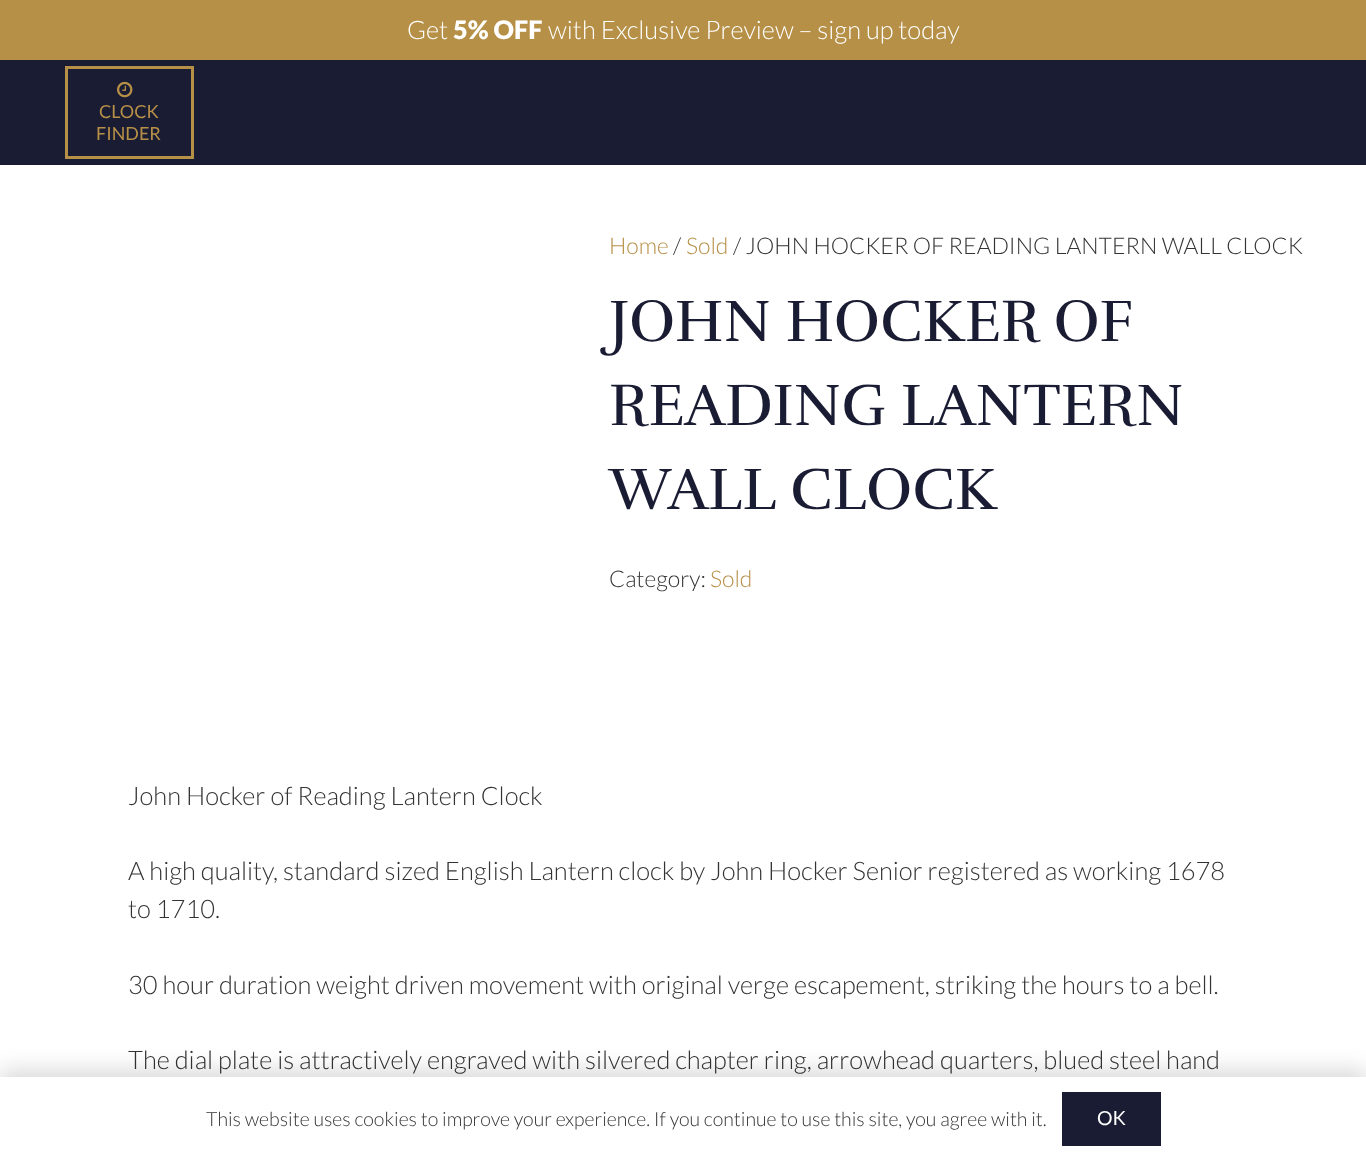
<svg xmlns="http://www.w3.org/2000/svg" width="1366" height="1161">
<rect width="100%" height="100%" fill="#fff"/>
<rect width="1366" height="60" fill="#b79047"/>
<text x="407" y="39" style="font-family:Lato;font-size:25.5px;font-weight:300;fill:#fff">Get</text>
<text x="453" y="39" style="font-family:Lato;font-size:25.5px;font-weight:900;fill:#fff">5% OFF</text>
<text x="548" y="39" style="font-family:Lato;font-size:25.5px;font-weight:300;fill:#fff">with Exclusive Preview – sign up today</text>
<rect y="60" width="1366" height="105" fill="#1a1c33"/>
<image x="117" y="81" width="16" height="17" href="media/1.png"/>
<rect x="66.5" y="67.5" width="126" height="90" fill="none" stroke="#b79047" stroke-width="3"/>
<text x="99" y="118" style="font-family:Lato;font-size:18px;fill:#b79047">CLOCK</text>
<text x="96" y="140" style="font-family:Lato;font-size:18px;fill:#b79047">FINDER</text>
<text x="609" y="254" style="font-family:Lato;font-size:22.95px;font-weight:300;fill:#b79047">Home</text>
<text x="673" y="254" style="font-family:Lato;font-size:22.95px;font-weight:300;fill:#333">/</text>
<text x="686" y="254" style="font-family:Lato;font-size:22.95px;font-weight:300;fill:#b79047">Sold</text>
<text x="733" y="254" style="font-family:Lato;font-size:22.95px;font-weight:300;fill:#333">/ JOHN HOCKER OF READING LANTERN WALL CLOCK</text>
<text x="609" y="341" word-spacing="-1" style="font-family:Rufina;font-size:60px;fill:#1a1c33">JOHN HOCKER OF</text>
<text x="609" y="425" style="font-family:Rufina;font-size:60px;fill:#1a1c33">READING LANTERN</text>
<text x="609" y="509" style="font-family:Rufina;font-size:60px;fill:#1a1c33">WALL CLOCK</text>
<text x="609" y="587" style="font-family:Lato;font-size:22.95px;font-weight:300;fill:#333">Category:</text>
<text x="710" y="587" style="font-family:Lato;font-size:22.95px;font-weight:300;fill:#b79047">Sold</text>
<text x="128" y="805" style="font-family:Lato;font-size:25.5px;font-weight:300;fill:#333">John Hocker of Reading Lantern Clock</text>
<text x="128" y="880" style="font-family:Lato;font-size:25.5px;font-weight:300;fill:#333">A high quality, standard sized English Lantern clock by John Hocker Senior registered as working 1678</text>
<text x="128" y="918" style="font-family:Lato;font-size:25.5px;font-weight:300;fill:#333">to 1710.</text>
<text x="128" y="994" style="font-family:Lato;font-size:25.5px;font-weight:300;fill:#333">30 hour duration weight driven movement with original verge escapement, striking the hours to a bell.</text>
<text x="128" y="1069" style="font-family:Lato;font-size:25.5px;font-weight:300;fill:#333">The dial plate is attractively engraved with silvered chapter ring, arrowhead quarters, blued steel hand</text>
<rect y="1070" width="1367" height="84" fill="#00000026" filter="blur(11px)"/>
<rect y="1077" width="1366" height="84" fill="#fff"/>
<text x="206" y="1126" style="font-family:Lato;font-size:19.5px;font-weight:300;fill:#333">This website uses cookies to improve your experience. If you continue to use this site, you agree with it.</text>
<rect x="1062" y="1092" width="99" height="54" fill="#1a1c33"/>
<text x="1097" y="1125" style="font-family:Lato;font-size:19.5px;fill:#fff">OK</text>
</svg>
